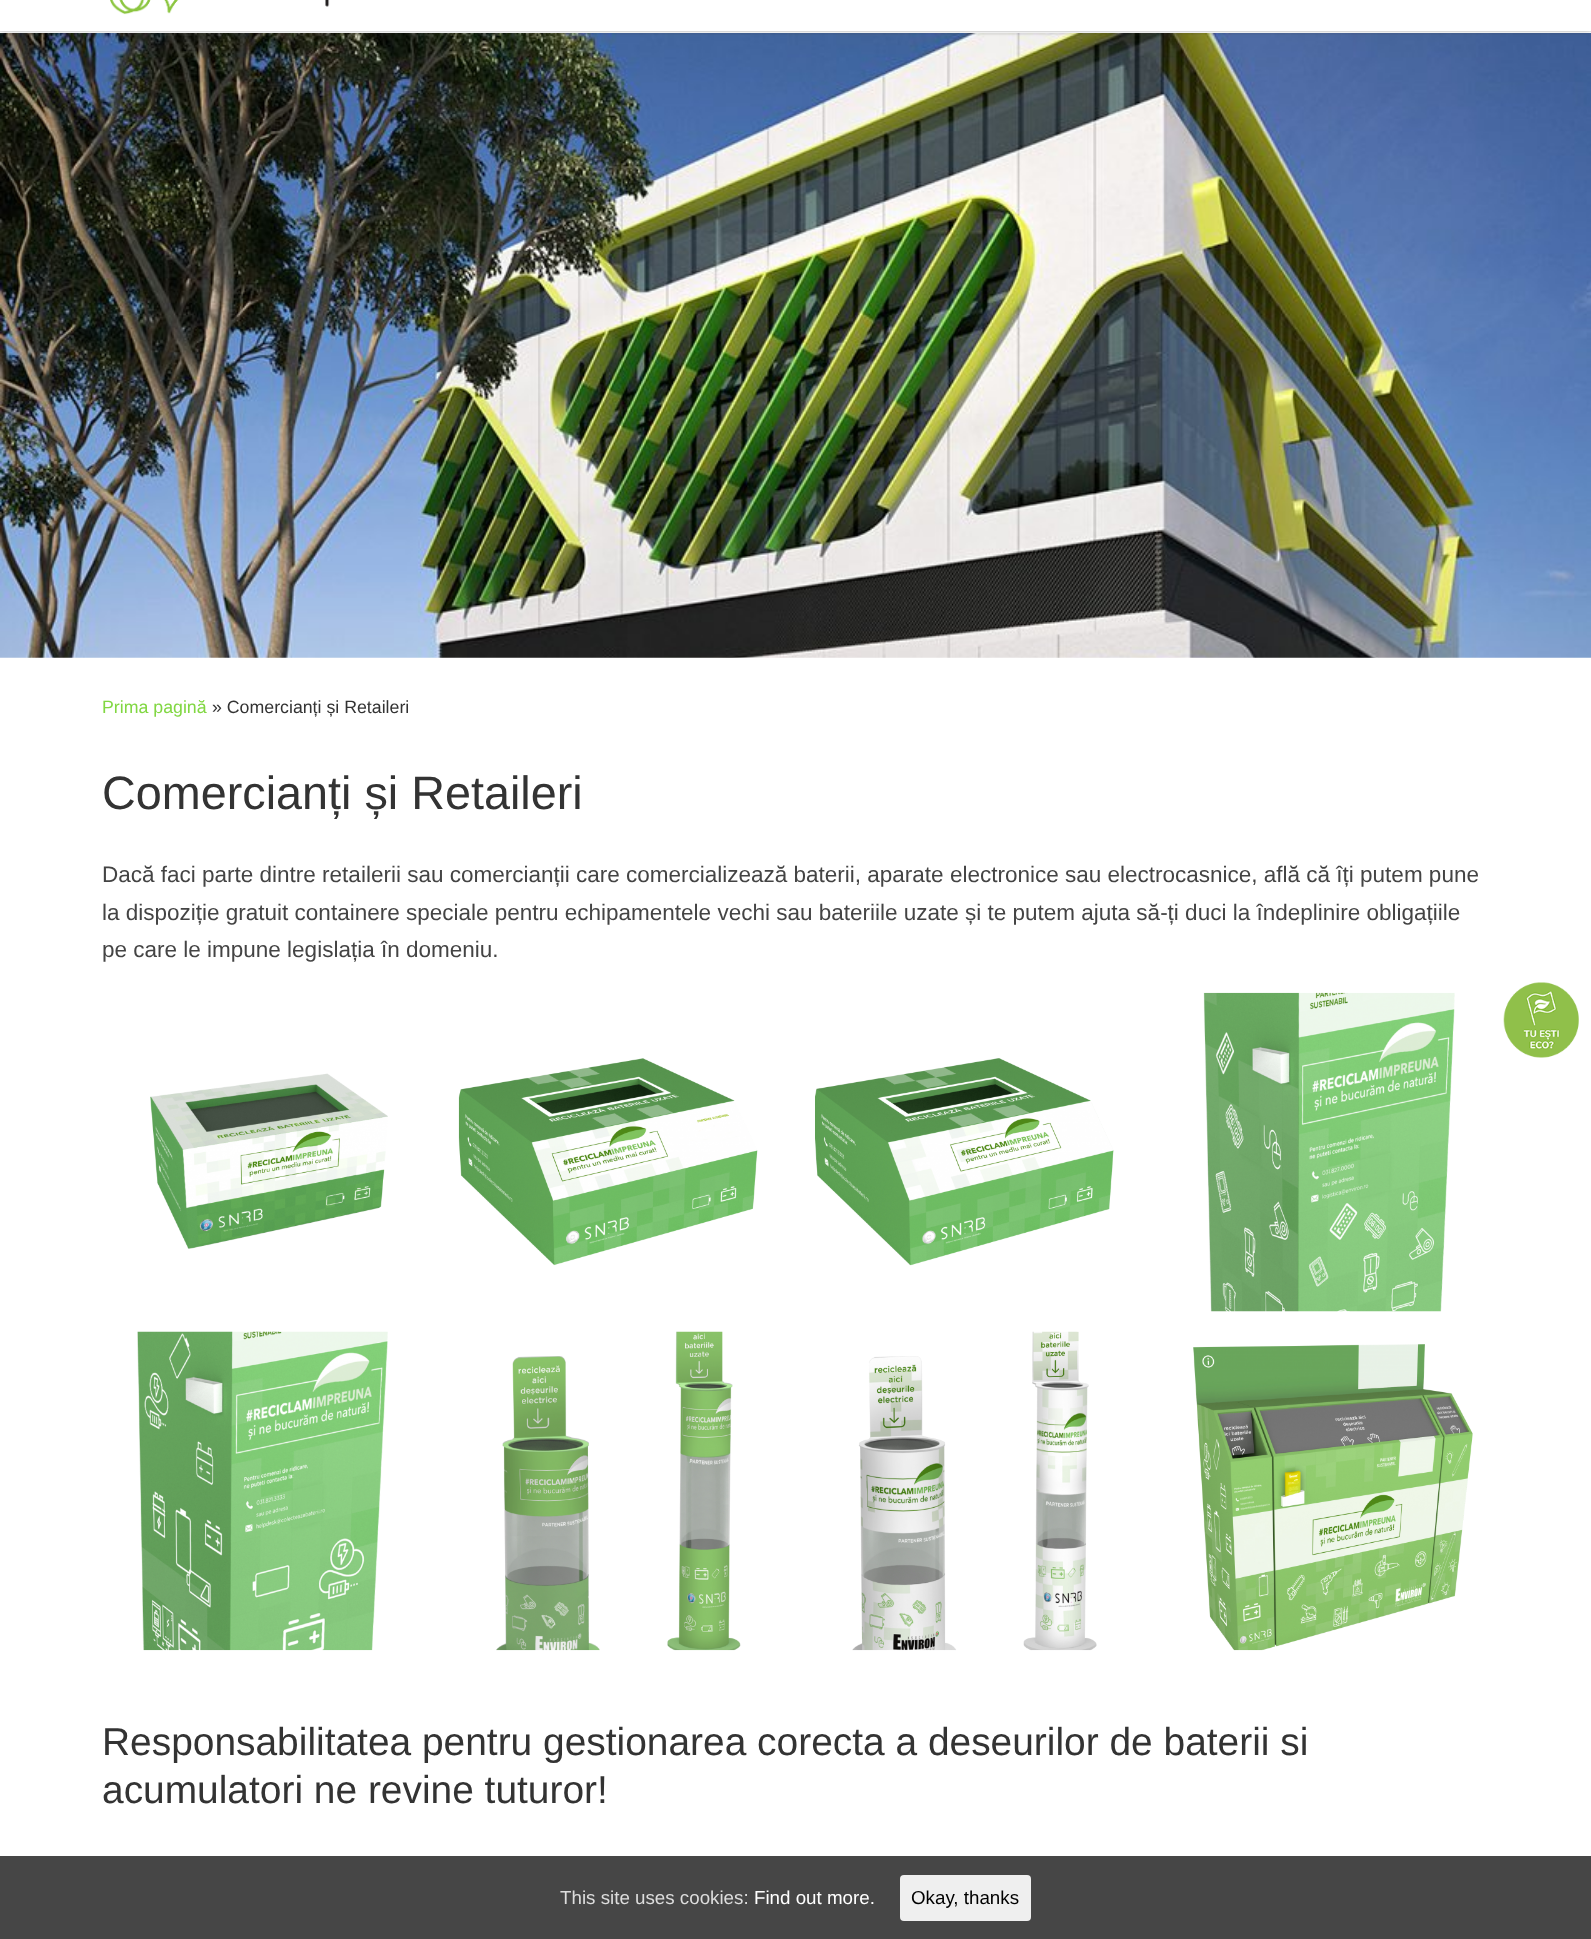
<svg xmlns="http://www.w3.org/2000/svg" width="1591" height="1939">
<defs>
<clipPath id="clip1"><rect x="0" y="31" width="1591" height="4"/></clipPath>
</defs>
<rect width="100%" height="100%" fill="#fff"/>
<image x="0" y="33" width="1591" height="625" href="media/2.png"/>
<rect y="-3" width="1591" height="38" fill="#66666614" filter="blur(1px)"/>
<rect width="1591" height="33" fill="#fff"/>
<rect y="31" width="1591" height="1" fill="#ececec"/>
<rect y="31" width="1591" height="1" fill="#ffffff26"/>
<g clip-path="url(#clip1)">
<rect y="-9" width="1591" height="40" fill="#00000033" filter="blur(3px)"/>
</g>
<image x="110" y="0" width="220" height="15" href="media/1.png"/>
<text x="102" y="713" style="font-family:Liberation Sans;font-size:17.75px;fill:#81d742">Prima pagină</text>
<text x="212" y="713" style="font-family:Liberation Sans;font-size:17.75px;fill:#333">» Comercianți și Retaileri</text>
<text x="102" y="809" style="font-family:Liberation Sans;font-size:46.75px;fill:#333">Comercianți și Retaileri</text>
<text x="102" y="882" style="font-family:Liberation Sans;font-size:22.5px;fill:#444">Dacă faci parte dintre retailerii sau comercianții care comercializează baterii, aparate electronice sau electrocasnice, află că îți putem pune</text>
<text x="102" y="920" style="font-family:Liberation Sans;font-size:22.5px;fill:#444">la dispoziție gratuit containere speciale pentru echipamentele vechi sau bateriile uzate și te putem ajuta să-ți duci la îndeplinire obligațiile</text>
<text x="102" y="957" style="font-family:Liberation Sans;font-size:22.5px;fill:#444">pe care le impune legislația în domeniu.</text>
<image x="150" y="1073" width="238" height="176" href="media/3.png"/>
<image x="458" y="1058" width="300" height="208" href="media/4.png"/>
<image x="815" y="1058" width="299" height="208" href="media/5.png"/>
<image x="1203" y="992" width="252" height="320" href="media/6.png"/>
<image x="137" y="1331" width="251" height="320" href="media/7.png"/>
<image x="496" y="1331" width="245" height="320" href="media/8.png"/>
<image x="852" y="1331" width="245" height="320" href="media/9.png"/>
<image x="1193" y="1344" width="280" height="307" href="media/10.png"/>
<text x="102" y="1755" style="font-family:Liberation Sans;font-size:38.9px;fill:#333">Responsabilitatea pentru gestionarea corecta a deseurilor de baterii si</text>
<text x="102" y="1803" style="font-family:Liberation Sans;font-size:38.9px;fill:#333">acumulatori ne revine tuturor!</text>
<image x="1503" y="982" width="76" height="76" href="media/11.png"/>
<rect y="1856" width="1591" height="83" fill="#464646"/>
<text x="560" y="1904" style="font-family:Liberation Sans;font-size:18.75px;fill:#ddd">This site uses cookies:</text>
<text x="754" y="1904" style="font-family:Liberation Sans;font-size:18.75px;fill:#fff">Find out more.</text>
<rect x="900" y="1875" width="131" height="46" rx="4" fill="#efefef"/>
<text x="911" y="1904" style="font-family:Liberation Sans;font-size:18.75px;fill:#000">Okay, thanks</text>
</svg>
